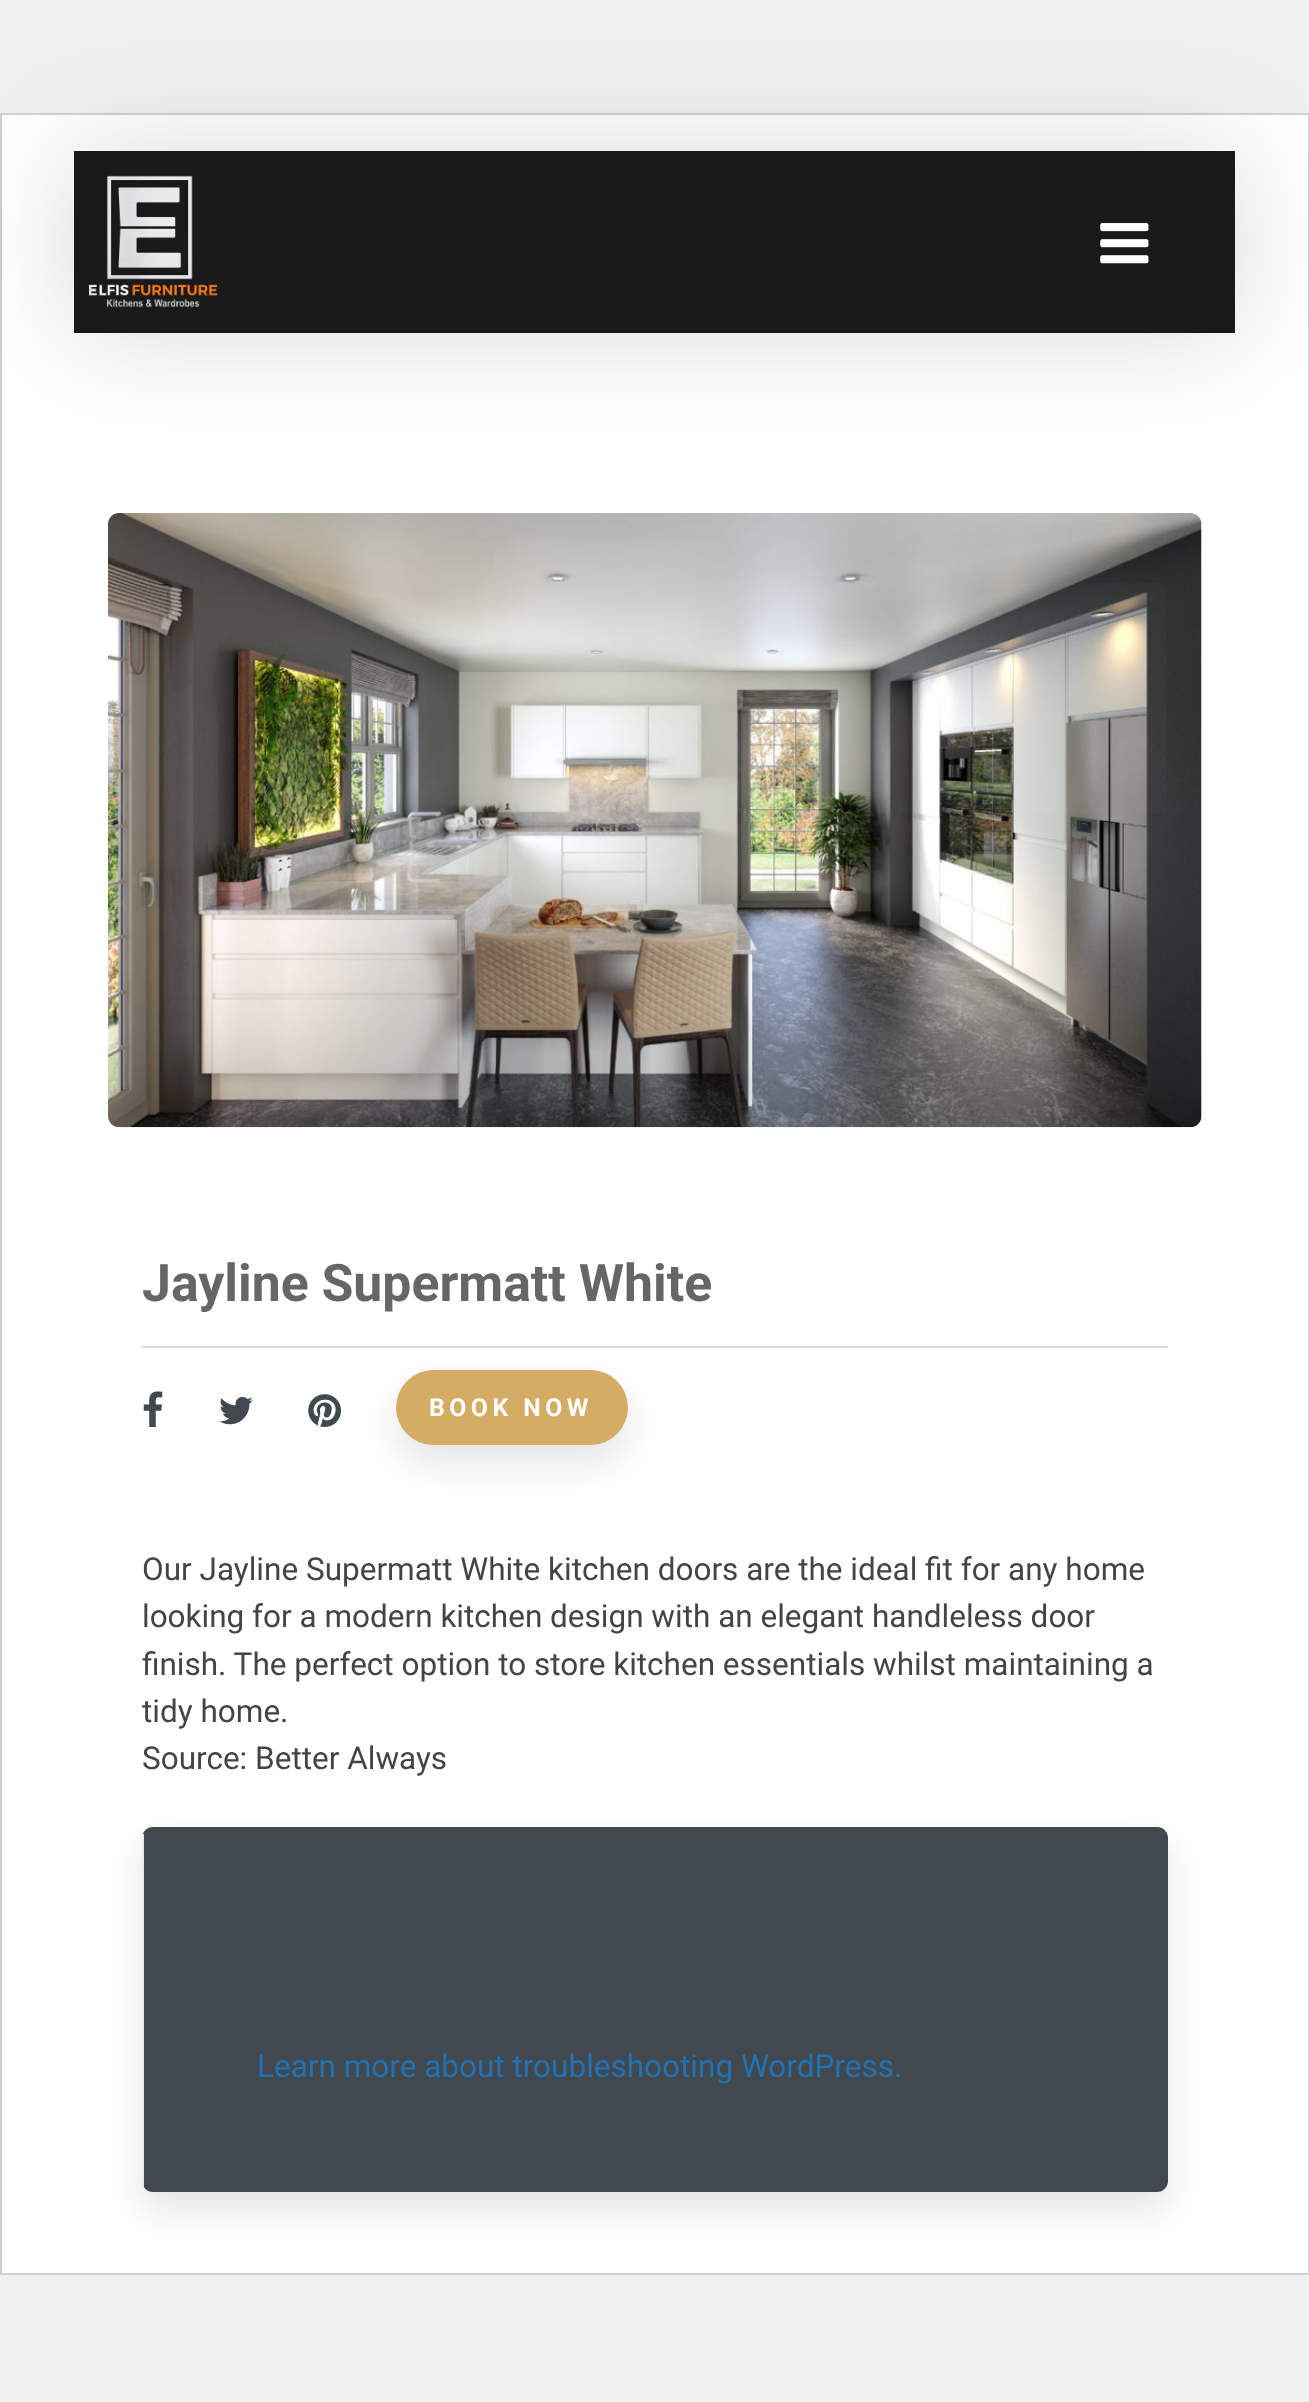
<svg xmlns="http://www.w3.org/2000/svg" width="1309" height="2402">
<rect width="100%" height="100%" fill="#f1f1f1"/>
<rect x="1" y="114" width="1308" height="2160" fill="#fff" stroke="#ccd0d4" stroke-width="2"/>
<rect x="74" y="151" width="1161" height="182" fill="#00000026" filter="blur(56px)"/>
<rect x="74" y="151" width="1161" height="182" fill="#1a1a1b"/>
<image x="88" y="175" width="130" height="133" href="media/1.png"/>
<image x="1100" y="223" width="49" height="41" href="media/2.png"/>
<image x="108" y="513" width="1094" height="615" href="media/3.png"/>
<rect x="142" y="1346" width="1026" height="2" fill="#dadada"/>
<text x="142" y="1301" style="font-family:Roboto;font-size:51.75px;font-weight:bold;fill:#666">Jayline Supermatt White</text>
<image x="143" y="1391" width="20" height="36" href="media/4.png"/>
<image x="219" y="1396" width="34" height="29" href="media/5.png"/>
<image x="308" y="1394" width="33" height="33" href="media/6.png"/>
<rect x="396" y="1388" width="232" height="75" rx="37.5" fill="#0000001a" filter="blur(17px)"/>
<rect x="396" y="1370" width="232" height="75" rx="37.5" fill="#d5ac63"/>
<text x="429" y="1416" style="font-family:Roboto;font-size:24.75px;font-weight:bold;letter-spacing:4.5px;fill:#fff">BOOK NOW</text>
<text x="142" y="1580" style="font-family:Roboto;font-size:31.5px;fill:#444">Our Jayline Supermatt White kitchen doors are the ideal fit for any home</text>
<text x="142" y="1627" style="font-family:Roboto;font-size:31.5px;fill:#444">looking for a modern kitchen design with an elegant handleless door</text>
<text x="142" y="1675" style="font-family:Roboto;font-size:31.5px;fill:#444">finish. The perfect option to store kitchen essentials whilst maintaining a</text>
<text x="142" y="1722" style="font-family:Roboto;font-size:31.5px;fill:#444">tidy home.</text>
<text x="142" y="1769" style="font-family:Roboto;font-size:31.5px;fill:#444">Source: Better Always</text>
<rect x="142" y="1845" width="1026" height="365" rx="11" fill="#0000001a" filter="blur(17px)"/>
<rect x="142" y="1827" width="1026" height="365" rx="11" fill="#41484e"/>
<rect x="142" y="1834" width="2" height="353" fill="#ebebeb"/>
<text x="257" y="2077" style="font-family:Roboto;font-size:31.5px;fill:#2271b1">Learn more about troubleshooting WordPress.</text>
</svg>
